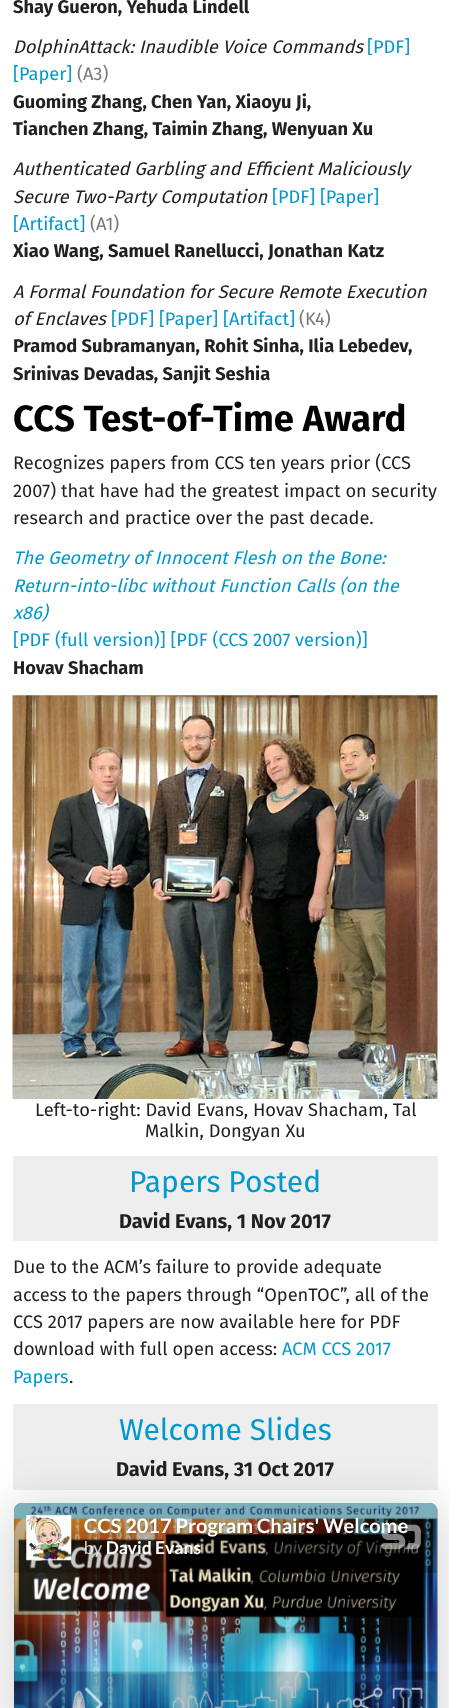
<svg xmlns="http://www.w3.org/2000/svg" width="449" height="1708">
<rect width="100%" height="100%" fill="#fff"/>
<text x="13" y="13" style="font-family:Fira Sans;font-size:18.25px;font-weight:bold;fill:#212121">Shay Gueron, Yehuda Lindell</text>
<text x="13" y="53" style="font-family:Fira Sans;font-size:18.25px;font-style:italic;fill:#212121">DolphinAttack: Inaudible Voice Commands</text>
<text x="367" y="53" style="font-family:Fira Sans;font-size:18.25px;fill:#09c">[PDF]</text>
<text x="13" y="80" style="font-family:Fira Sans;font-size:18.25px;fill:#09c">[Paper]</text>
<text x="77" y="80" style="font-family:Fira Sans;font-size:18.25px;fill:#777">(A3)</text>
<text x="13" y="108" style="font-family:Fira Sans;font-size:18.25px;font-weight:bold;fill:#212121">Guoming Zhang, Chen Yan, Xiaoyu Ji,</text>
<text x="13" y="135" style="font-family:Fira Sans;font-size:18.25px;font-weight:bold;fill:#212121">Tianchen Zhang, Taimin Zhang, Wenyuan Xu</text>
<text x="13" y="175" style="font-family:Fira Sans;font-size:18.25px;font-style:italic;fill:#212121">Authenticated Garbling and Efficient Maliciously</text>
<text x="13" y="203" style="font-family:Fira Sans;font-size:18.25px;font-style:italic;fill:#212121">Secure Two-Party Computation</text>
<text x="272" y="203" style="font-family:Fira Sans;font-size:18.25px;fill:#09c">[PDF] [Paper]</text>
<text x="13" y="230" style="font-family:Fira Sans;font-size:18.25px;fill:#09c">[Artifact]</text>
<text x="90" y="230" style="font-family:Fira Sans;font-size:18.25px;fill:#777">(A1)</text>
<text x="13" y="257" style="font-family:Fira Sans;font-size:18.25px;font-weight:bold;fill:#212121">Xiao Wang, Samuel Ranellucci, Jonathan Katz</text>
<text x="13" y="298" style="font-family:Fira Sans;font-size:18.25px;font-style:italic;fill:#212121">A Formal Foundation for Secure Remote Execution</text>
<text x="13" y="325" style="font-family:Fira Sans;font-size:18.25px;font-style:italic;fill:#212121">of Enclaves</text>
<text x="111" y="325" style="font-family:Fira Sans;font-size:18.25px;fill:#09c">[PDF] [Paper] [Artifact]</text>
<text x="299" y="325" style="font-family:Fira Sans;font-size:18.25px;fill:#777">(K4)</text>
<text x="13" y="352" style="font-family:Fira Sans;font-size:18.25px;font-weight:bold;fill:#212121">Pramod Subramanyan, Rohit Sinha, Ilia Lebedev,</text>
<text x="13" y="380" style="font-family:Fira Sans;font-size:18.25px;font-weight:bold;fill:#212121">Srinivas Devadas, Sanjit Seshia</text>
<text x="13" y="431" style="font-family:Fira Sans;font-size:36.5px;font-weight:bold;fill:#000">CCS Test-of-Time Award</text>
<text x="13" y="469" style="font-family:Fira Sans;font-size:18.25px;fill:#212121">Recognizes papers from CCS ten years prior (CCS</text>
<text x="13" y="497" style="font-family:Fira Sans;font-size:18.25px;fill:#212121">2007) that have had the greatest impact on security</text>
<text x="13" y="524" style="font-family:Fira Sans;font-size:18.25px;fill:#212121">research and practice over the past decade.</text>
<text x="13" y="564" style="font-family:Fira Sans;font-size:18.25px;font-style:italic;fill:#09c">The Geometry of Innocent Flesh on the Bone:</text>
<text x="13" y="592" style="font-family:Fira Sans;font-size:18.25px;font-style:italic;fill:#09c">Return-into-libc without Function Calls (on the</text>
<text x="13" y="619" style="font-family:Fira Sans;font-size:18.25px;font-style:italic;fill:#09c">x86)</text>
<text x="13" y="646" style="font-family:Fira Sans;font-size:18.25px;fill:#09c">[PDF (full version)] [PDF (CCS 2007 version)]</text>
<text x="13" y="674" style="font-family:Fira Sans;font-size:18.25px;font-weight:bold;fill:#212121">Hovav Shacham</text>
<image x="12" y="695" width="426" height="404" href="media/1.png"/>
<text x="35" y="1116" style="font-family:Fira Sans;font-size:18.25px;fill:#212121">Left-to-right: David Evans, Hovav Shacham, Tal</text>
<text x="145" y="1137" style="font-family:Fira Sans;font-size:18.25px;fill:#212121">Malkin, Dongyan Xu</text>
<rect x="13" y="1156" width="425" height="85" fill="#eee"/>
<text x="129" y="1192" style="font-family:Fira Sans;font-size:30px;fill:#09c">Papers Posted</text>
<text x="119" y="1228" style="font-family:Fira Sans;font-size:20px;font-weight:bold;fill:#212121">David Evans, 1 Nov 2017</text>
<text x="13" y="1273" style="font-family:Fira Sans;font-size:18.25px;fill:#212121">Due to the ACM’s failure to provide adequate</text>
<text x="13" y="1301" style="font-family:Fira Sans;font-size:18.25px;fill:#212121">access to the papers through “OpenTOC”, all of the</text>
<text x="13" y="1328" style="font-family:Fira Sans;font-size:18.25px;fill:#212121">CCS 2017 papers are now available here for PDF</text>
<text x="13" y="1355" style="font-family:Fira Sans;font-size:18.25px;fill:#212121">download with full open access:</text>
<text x="282" y="1355" style="font-family:Fira Sans;font-size:18.25px;fill:#09c">ACM CCS 2017</text>
<text x="13" y="1383" style="font-family:Fira Sans;font-size:18.25px;fill:#09c">Papers</text>
<text x="69" y="1383" style="font-family:Fira Sans;font-size:18.25px;fill:#212121">.</text>
<rect x="13" y="1404" width="425" height="86" fill="#eee"/>
<text x="119" y="1440" style="font-family:Fira Sans;font-size:30px;fill:#09c">Welcome Slides</text>
<text x="116" y="1476" style="font-family:Fira Sans;font-size:20px;font-weight:bold;fill:#212121">David Evans, 31 Oct 2017</text>
<rect x="14" y="1509" width="424" height="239" rx="8" fill="#00000033" filter="blur(25px)"/>
<rect x="14" y="1503" width="424" height="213" rx="8" fill="#0000001a"/>
<image x="14" y="1503" width="424" height="205" href="media/2.png"/>
</svg>
